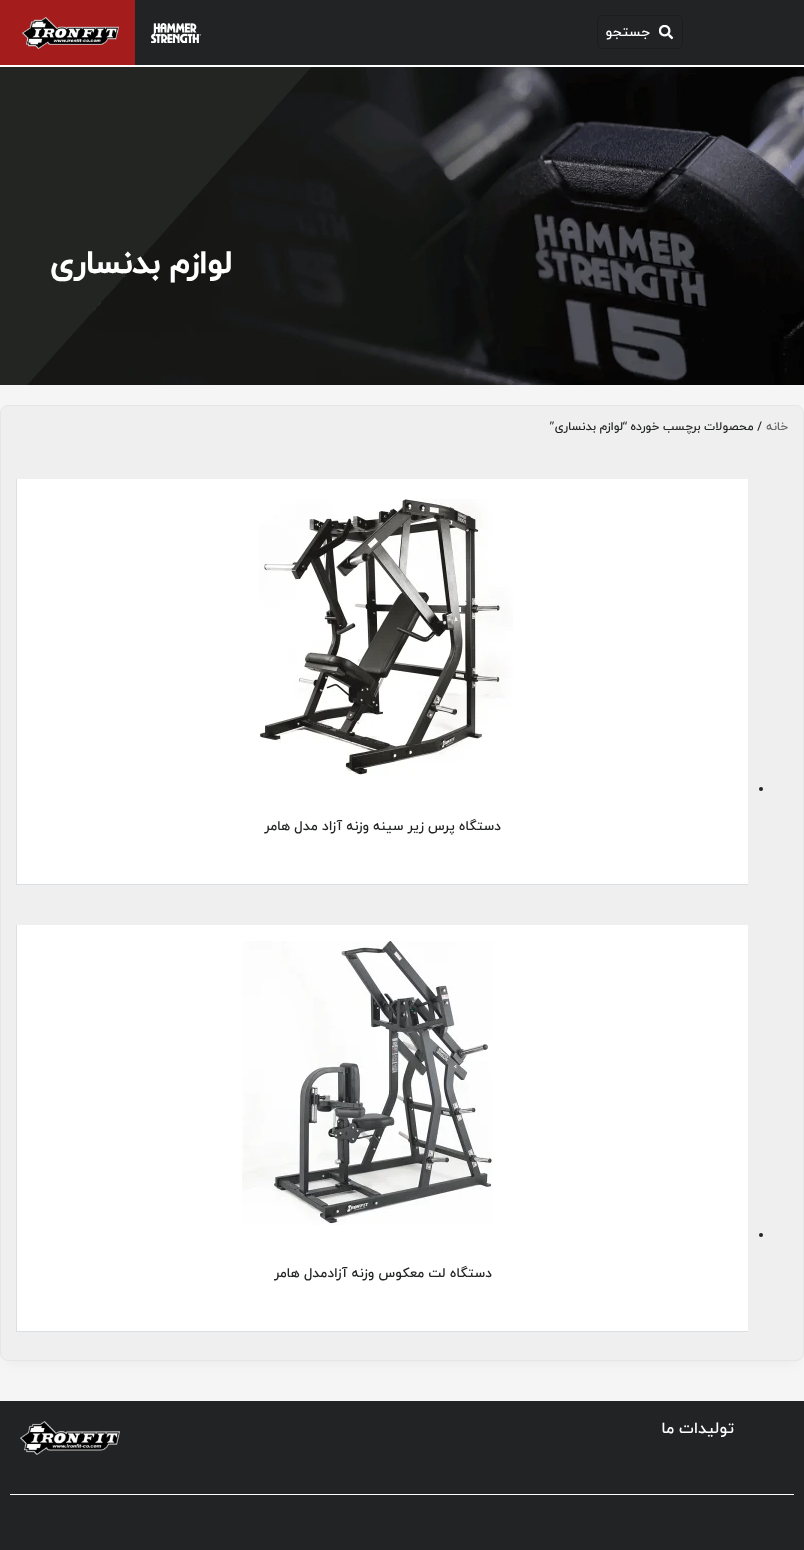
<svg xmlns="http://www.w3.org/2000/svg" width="804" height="1550">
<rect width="100%" height="100%" fill="#f5f5f5"/>
<rect width="135" height="65" fill="#a51c1c"/>
<rect y="65" width="804" height="2" fill="#fff"/>
<rect x="135" width="669" height="65" fill="#222324"/>
<image x="22" y="17" width="97" height="32" href="media/1.png"/>
<rect x="597.5" y="15.5" width="85" height="33" rx="5.5" fill="none" stroke="#1b1c1c"/>
<rect x="650" y="16" width="32" height="32" rx="4" fill="#222324"/>
<image x="659" y="25" width="15" height="15" href="media/2.png"/>
<text x="650" y="36" style="font-family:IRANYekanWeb;font-size:14px;font-weight:500;direction:rtl;fill:#fff">جستجو</text>
<image x="151" y="23" width="50" height="20" href="media/3.png"/>
<image x="0" y="67" width="804" height="318" href="media/4.png"/>
<text x="232" y="273" style="font-family:IRANYekanWeb;font-size:32px;font-weight:bold;direction:rtl;fill:#fff">لوازم بدنساری</text>
<rect x="7" y="420" width="790" height="942" rx="1" fill="#0000000d" filter="blur(6.5px)"/>
<rect x="0.5" y="405.5" width="803" height="955" rx="7.5" fill="#efefef" stroke="#e6e6e6"/>
<text x="788" y="430" style="font-family:IRANYekanWeb;font-size:12px;font-weight:500;direction:rtl;fill:#666">خانه</text>
<text x="762" y="430" style="font-family:IRANYekanWeb;font-size:12px;font-weight:500;direction:rtl;fill:#222324">/ محصولات برچسب خورده</text>
<text x="627" y="430" style="font-family:Noto Sans;font-size:12px;direction:rtl;fill:#222324">“</text>
<text x="554" y="430" style="font-family:Noto Sans;font-size:12px;direction:rtl;fill:#222324">”</text>
<text x="623" y="430" style="font-family:IRANYekanWeb;font-size:12px;font-weight:500;direction:rtl;fill:#222324">لوازم بدنساری</text>
<rect x="17" y="479" width="731" height="405" fill="#fff"/>
<rect x="16" y="884" width="732" height="1" fill="#dadfe3"/>
<rect x="16" y="479" width="1" height="406" fill="#dadfe3"/>
<circle cx="761" cy="789" r="2" fill="#222324"/>
<image x="259" y="499" width="254" height="276" href="media/5.png"/>
<text x="501" y="830" style="font-family:IRANYekanWeb;font-size:13.6px;font-weight:500;direction:rtl;fill:#222324">دستگاه پرس زیر سینه وزنه آزاد مدل هامر</text>
<rect x="17" y="925" width="731" height="406" fill="#fff"/>
<rect x="16" y="1331" width="732" height="1" fill="#dadfe3"/>
<rect x="16" y="925" width="1" height="407" fill="#dadfe3"/>
<circle cx="761" cy="1235" r="2" fill="#222324"/>
<image x="242" y="941" width="251" height="284" href="media/6.png"/>
<text x="492" y="1277" style="font-family:IRANYekanWeb;font-size:13.6px;font-weight:500;direction:rtl;fill:#222324">دستگاه لت معکوس وزنه آزادمدل هامر</text>
<rect y="1401" width="804" height="149" fill="#222324"/>
<text x="734" y="1433" style="font-family:IRANYekanWeb;font-size:16px;font-weight:500;direction:rtl;fill:#fff">تولیدات ما</text>
<image x="20" y="1421" width="100" height="34" href="media/7.png"/>
<rect x="10" y="1494" width="784" height="1" fill="#fefefe"/>
</svg>
